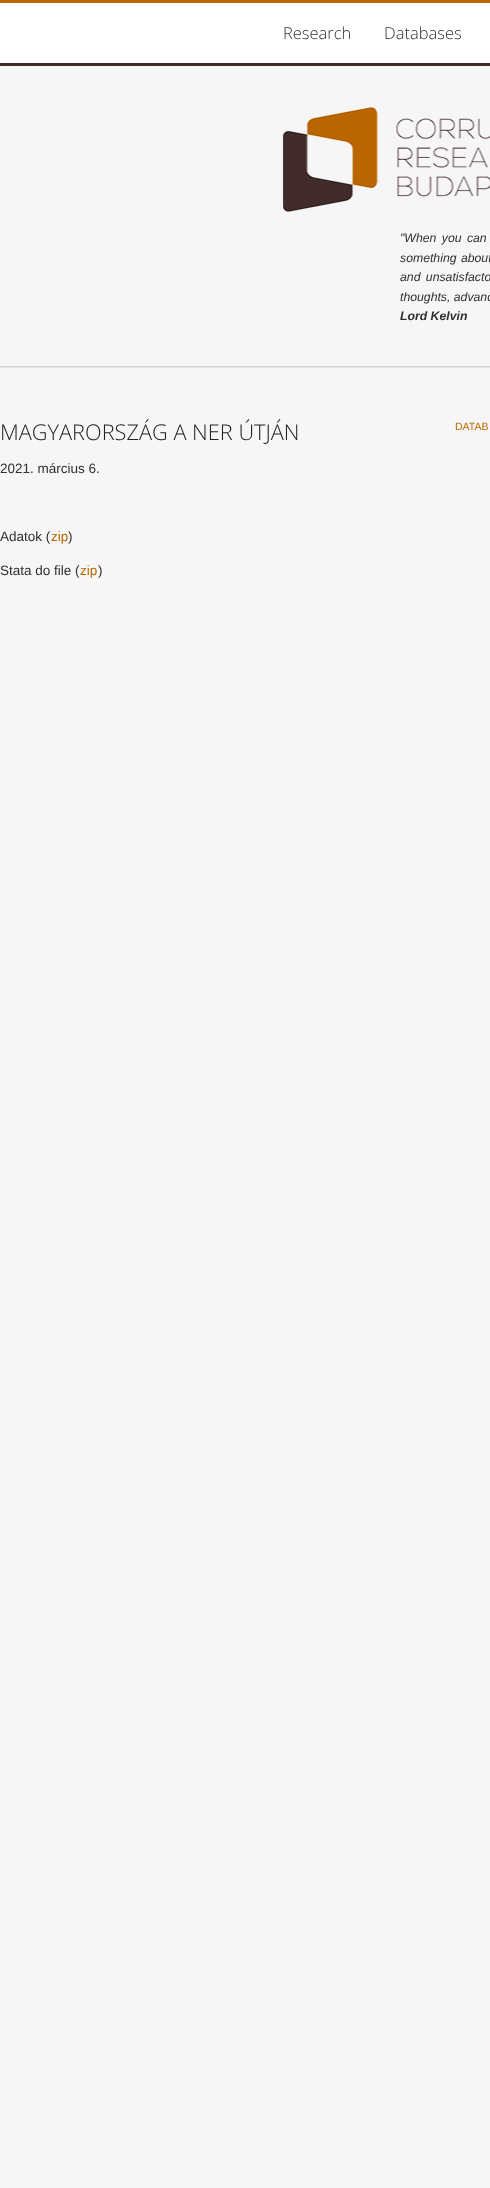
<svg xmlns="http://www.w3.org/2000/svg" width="490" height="2188">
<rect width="100%" height="100%" fill="#f6f6f6"/>
<rect y="3" width="490" height="60" fill="#fff"/>
<rect width="490" height="3" fill="#b86700"/>
<rect y="63" width="490" height="3" fill="#412c2b"/>
<text x="283" y="39" style="font-family:Open Sans;font-size:16.5px;font-weight:300;fill:#2f2f2f">Research</text>
<text x="384" y="39" style="font-family:Open Sans;font-size:16.5px;font-weight:300;fill:#2f2f2f">Databases</text>
<image x="0" y="366" width="490" height="2" href="media/1.png"/>
<image x="283" y="107" width="207" height="105" href="media/2.png"/>
<text x="400" y="242" word-spacing="2" style="font-family:Liberation Sans;font-size:12.25px;font-style:italic;fill:#2f2f2f">"When you can</text>
<text x="400" y="262" word-spacing="1" style="font-family:Liberation Sans;font-size:12.25px;font-style:italic;fill:#2f2f2f">something about</text>
<text x="400" y="281" word-spacing="2" style="font-family:Liberation Sans;font-size:12.25px;font-style:italic;fill:#2f2f2f">and unsatisfacto</text>
<text x="400" y="301" style="font-family:Liberation Sans;font-size:12.25px;font-style:italic;fill:#2f2f2f">thoughts, advanc</text>
<text x="400" y="320" style="font-family:Liberation Sans;font-size:12.25px;font-weight:bold;font-style:italic;fill:#2f2f2f">Lord Kelvin</text>
<text x="0" y="440" style="font-family:Open Sans;font-size:21.75px;font-weight:300;fill:#222">MAGYARORSZÁG A NER ÚTJÁN</text>
<text x="455" y="430" style="font-family:Liberation Sans;font-size:10.5px;fill:#b86700">DATAB</text>
<text x="0" y="473" style="font-family:Liberation Sans;font-size:13.5px;fill:#2f2f2f">2021. március 6.</text>
<text x="0" y="541" style="font-family:Liberation Sans;font-size:13.5px;fill:#2f2f2f">Adatok (</text>
<text x="51" y="541" style="font-family:Liberation Sans;font-size:13.5px;fill:#b86700">zip</text>
<text x="68" y="541" style="font-family:Liberation Sans;font-size:13.5px;fill:#2f2f2f">)</text>
<text x="0" y="575" style="font-family:Liberation Sans;font-size:13.5px;fill:#2f2f2f">Stata do file (</text>
<text x="80" y="575" style="font-family:Liberation Sans;font-size:13.5px;fill:#b86700">zip</text>
<text x="98" y="575" style="font-family:Liberation Sans;font-size:13.5px;fill:#2f2f2f">)</text>
</svg>
